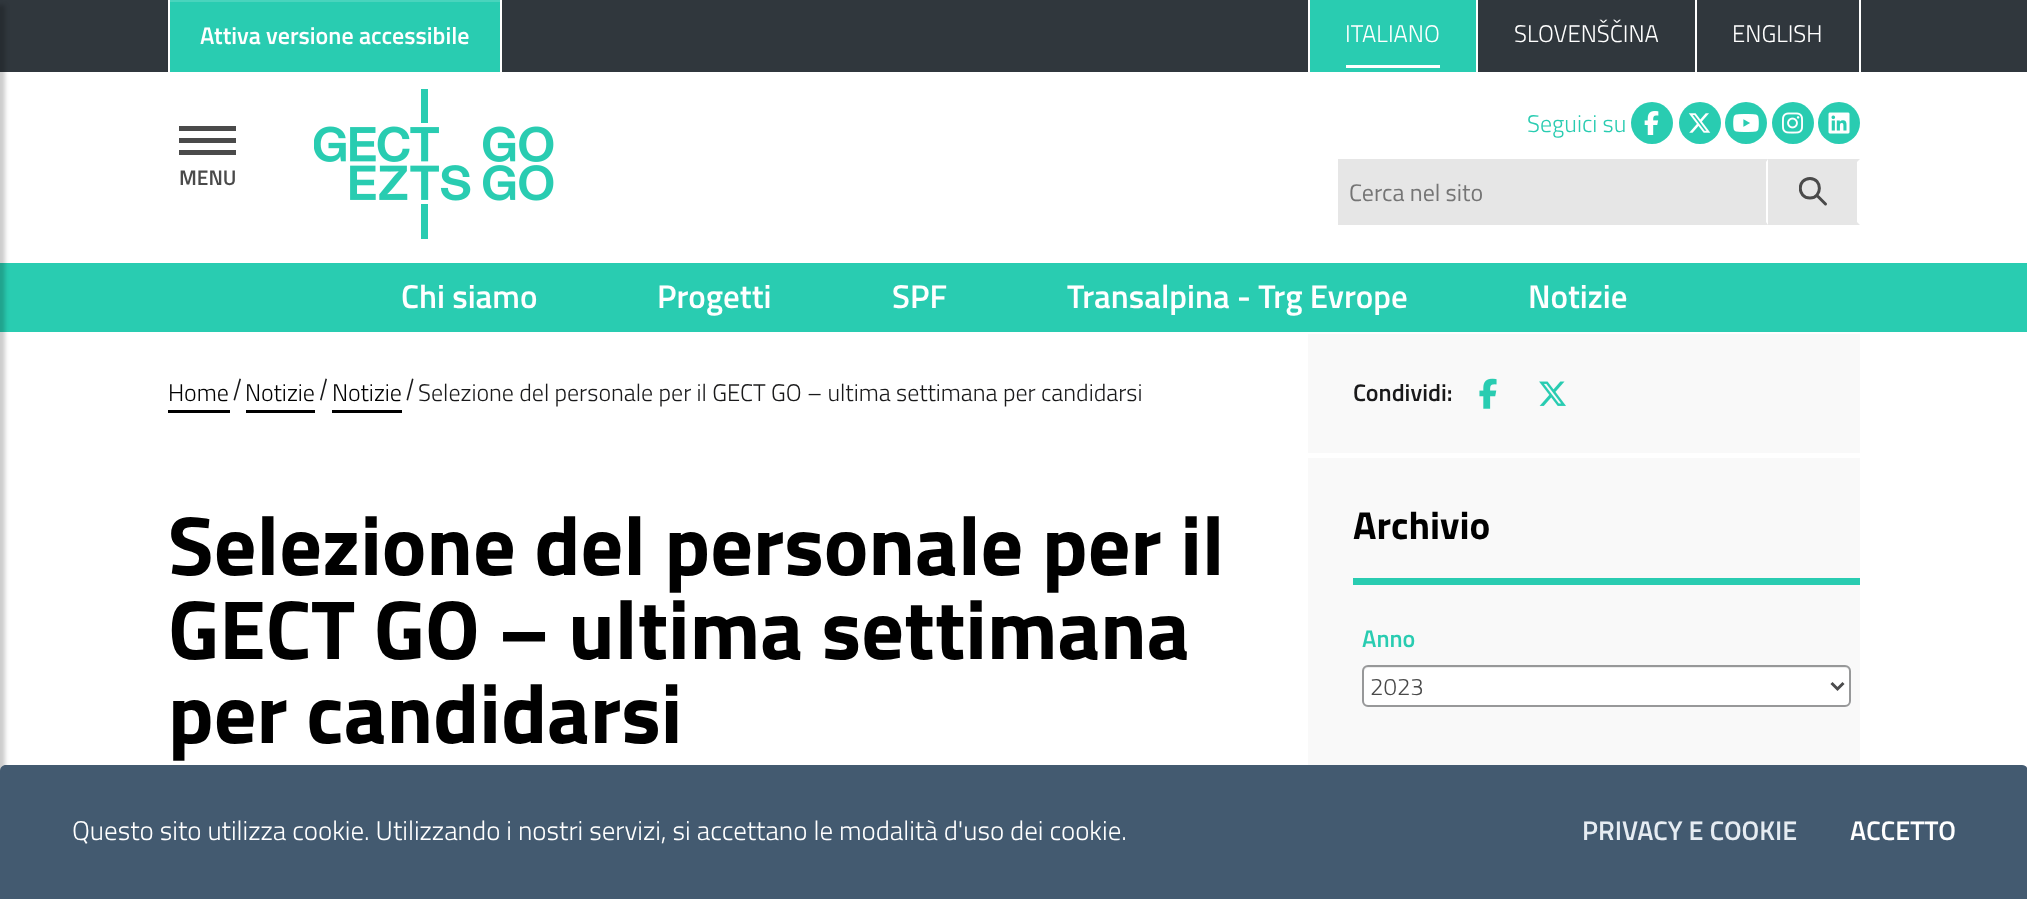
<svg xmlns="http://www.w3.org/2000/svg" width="2027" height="899">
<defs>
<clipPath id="clip1"><rect x="1799" y="177" width="30" height="30"/></clipPath>
</defs>
<rect width="100%" height="100%" fill="#fff"/>
<rect width="2027" height="72" fill="#30373d"/>
<rect x="168" y="2" width="333" height="72" fill="#00000012" filter="blur(1px)"/>
<rect x="170" y="2" width="330" height="70" fill="#29ccb1"/>
<rect x="170" width="330" height="2" fill="#49d4bd"/>
<rect x="500" width="2" height="72" fill="#fff"/>
<rect x="168" width="2" height="72" fill="#fff"/>
<text x="200" y="44" style="font-family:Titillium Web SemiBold;font-size:24px;font-weight:600;fill:#fff">Attiva versione accessibile</text>
<rect x="1310" width="166" height="72" fill="#29ccb1"/>
<rect x="1476" width="2" height="72" fill="#fff"/>
<rect x="1308" width="2" height="72" fill="#fff"/>
<rect x="1346" y="65" width="94" height="3" fill="#fff"/>
<text x="1345" y="42" style="font-family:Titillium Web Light;font-size:24px;font-weight:300;fill:#fff">ITALIANO</text>
<rect x="1695" width="2" height="72" fill="#fff"/>
<text x="1514" y="42" style="font-family:Titillium Web Light;font-size:24px;font-weight:300;fill:#fff">SLOVENŠČINA</text>
<rect x="1859" width="2" height="72" fill="#fff"/>
<text x="1732" y="42" style="font-family:Titillium Web Light;font-size:24px;font-weight:300;fill:#fff">ENGLISH</text>
<rect x="167" y="72" width="335" height="3" fill="#fff"/>
<rect y="263" width="2027" height="69" fill="#29ccb1"/>
<rect x="-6" y="5" width="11" height="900" fill="#00000033" filter="blur(2px)"/>
<rect x="179" y="126" width="57" height="5" fill="#4a4a4a"/>
<rect x="179" y="138" width="57" height="5" fill="#4a4a4a"/>
<rect x="179" y="150" width="57" height="5" fill="#4a4a4a"/>
<text x="179" y="185" style="font-family:Titillium Web SemiBold;font-size:21px;font-weight:600;fill:#4a4a4a">MENU</text>
<image x="314" y="89" width="240" height="150" href="media/1.png"/>
<text x="1527" y="132" style="font-family:Titillium Web Light;font-size:24px;font-weight:300;fill:#29ccb1">Seguici su</text>
<circle cx="1652" cy="123" r="21" fill="#29ccb1"/>
<image x="1644" y="111" width="15" height="24" href="media/2.png"/>
<circle cx="1700" cy="123" r="21" fill="#29ccb1"/>
<image x="1688" y="113" width="23" height="20" href="media/3.png"/>
<circle cx="1746" cy="123" r="21" fill="#29ccb1"/>
<image x="1733" y="114" width="26" height="18" href="media/4.png"/>
<circle cx="1793" cy="123" r="21" fill="#29ccb1"/>
<image x="1782" y="112" width="21" height="22" href="media/5.png"/>
<circle cx="1839" cy="123" r="21" fill="#29ccb1"/>
<image x="1828" y="112" width="22" height="22" href="media/6.png"/>
<rect x="1338" y="159" width="522" height="66" fill="#e6e6e6"/>
<path d="M1768 159v66l-2-3v-60z" fill="#fff"/>
<text x="1349" y="201" style="font-family:Titillium Web;font-size:24px;fill:#757575">Cerca nel sito</text>
<path d="M1860 159v66l-3-3v-60z" fill="#fff"/>
<g clip-path="url(#clip1)">
<path d="M1810 198c12.5 0 12.5-19.5 0-19.5c-13 0-13 19.5 0 19.5z" fill="none" stroke="#4a4a4a" stroke-width="3" stroke-linecap="square"/>
</g>
<path d="M1818 196.5l7.5 7.5" fill="none" stroke="#4a4a4a" stroke-width="3" stroke-linecap="round" stroke-linejoin="round"/>
<text x="401" y="308" style="font-family:Titillium Web SemiBold;font-size:33px;font-weight:600;fill:#fff">Chi siamo</text>
<text x="657" y="308" style="font-family:Titillium Web SemiBold;font-size:33px;font-weight:600;fill:#fff">Progetti</text>
<text x="892" y="308" style="font-family:Titillium Web SemiBold;font-size:33px;font-weight:600;fill:#fff">SPF</text>
<text x="1067" y="308" style="font-family:Titillium Web SemiBold;font-size:33px;font-weight:600;fill:#fff">Transalpina - Trg Evrope</text>
<text x="1528" y="308" style="font-family:Titillium Web SemiBold;font-size:33px;font-weight:600;fill:#fff">Notizie</text>
<text x="168" y="401" style="font-family:Titillium Web Light;font-size:24px;font-weight:300;fill:#000">Home</text>
<rect x="168" y="410" width="62" height="3" fill="#000"/>
<path d="M239.5 378.5l1.5 .5l-6 21.5l-1.5-.5z" fill="#19191a"/>
<text x="245" y="401" style="font-family:Titillium Web Light;font-size:24px;font-weight:300;fill:#000">Notizie</text>
<rect x="246" y="410" width="69" height="3" fill="#000"/>
<path d="M325.5 378.5l1.5 .5l-5.5 21.5l-1.5-.5z" fill="#19191a"/>
<text x="332" y="401" style="font-family:Titillium Web Light;font-size:24px;font-weight:300;fill:#000">Notizie</text>
<rect x="332" y="410" width="70" height="3" fill="#000"/>
<path d="M412 378.5l1.5 .5l-5.5 21.5l-1.5-.5z" fill="#19191a"/>
<text x="418" y="401" style="font-family:Titillium Web Light;font-size:24px;font-weight:300;fill:#19191a">Selezione del personale per il GECT GO – ultima settimana per candidarsi</text>
<rect x="1308" y="334" width="552" height="431" fill="#f9f9f9"/>
<rect x="1308" y="453" width="552" height="5" fill="#fff"/>
<text x="1353" y="401" style="font-family:Titillium Web SemiBold;font-size:24px;font-weight:600;fill:#19191a">Condividi:</text>
<image x="1479" y="378" width="18" height="31" href="media/7.png"/>
<image x="1539" y="381" width="27" height="25" href="media/8.png"/>
<text x="168" y="575" style="font-family:Titillium Web;font-size:84px;font-weight:bold;fill:#000">Selezione del personale per il</text>
<text x="168" y="659" style="font-family:Titillium Web;font-size:84px;font-weight:bold;fill:#000">GECT GO – ultima settimana</text>
<text x="168" y="743" style="font-family:Titillium Web;font-size:84px;font-weight:bold;fill:#000">per candidarsi</text>
<rect x="1353" y="578" width="507" height="7" fill="#29ccb1"/>
<text x="1353" y="539" style="font-family:Titillium Web;font-size:39px;font-weight:bold;fill:#000">Archivio</text>
<text x="1362" y="647" style="font-family:Titillium Web SemiBold;font-size:24px;font-weight:600;fill:#29ccb1">Anno</text>
<rect x="1364" y="666" width="486" height="39" rx="5" fill="#fff"/>
<path d="M1368 668h477c2 0 5 2 5 4v-1c0-3-2-5-5-5h-476c-3 0-5 2-5 5v1c0-2 2-4 4-4z" fill="#00000012"/>
<rect x="1363" y="666" width="487" height="40" rx="5" fill="none" stroke="#979899" stroke-width="2"/>
<path d="M1831.5 683l6 6l6-6" fill="none" stroke="#4c4c4d" stroke-width="3"/>
<text x="1370" y="695" style="font-family:Titillium Web Light;font-size:24px;font-weight:300;fill:#4a4a4a">2023</text>
<path d="M6 765h2016c3.5 0 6 2.5 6 6v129h-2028v-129c0-3.5 2.5-6 6-6z" fill="#435a70"/>
<text x="72" y="840" style="font-family:Titillium Web Light;font-size:27px;font-weight:300;fill:#fff">Questo sito utilizza cookie. Utilizzando i nostri servizi, si accettano le modalità d'uso dei cookie.</text>
<text x="1582" y="840" style="font-family:Titillium Web SemiBold;font-size:27px;font-weight:600;fill:#e6ecf2">PRIVACY E COOKIE</text>
<text x="1850" y="840" style="font-family:Titillium Web SemiBold;font-size:27px;font-weight:600;fill:#fff">ACCETTO</text>
</svg>
